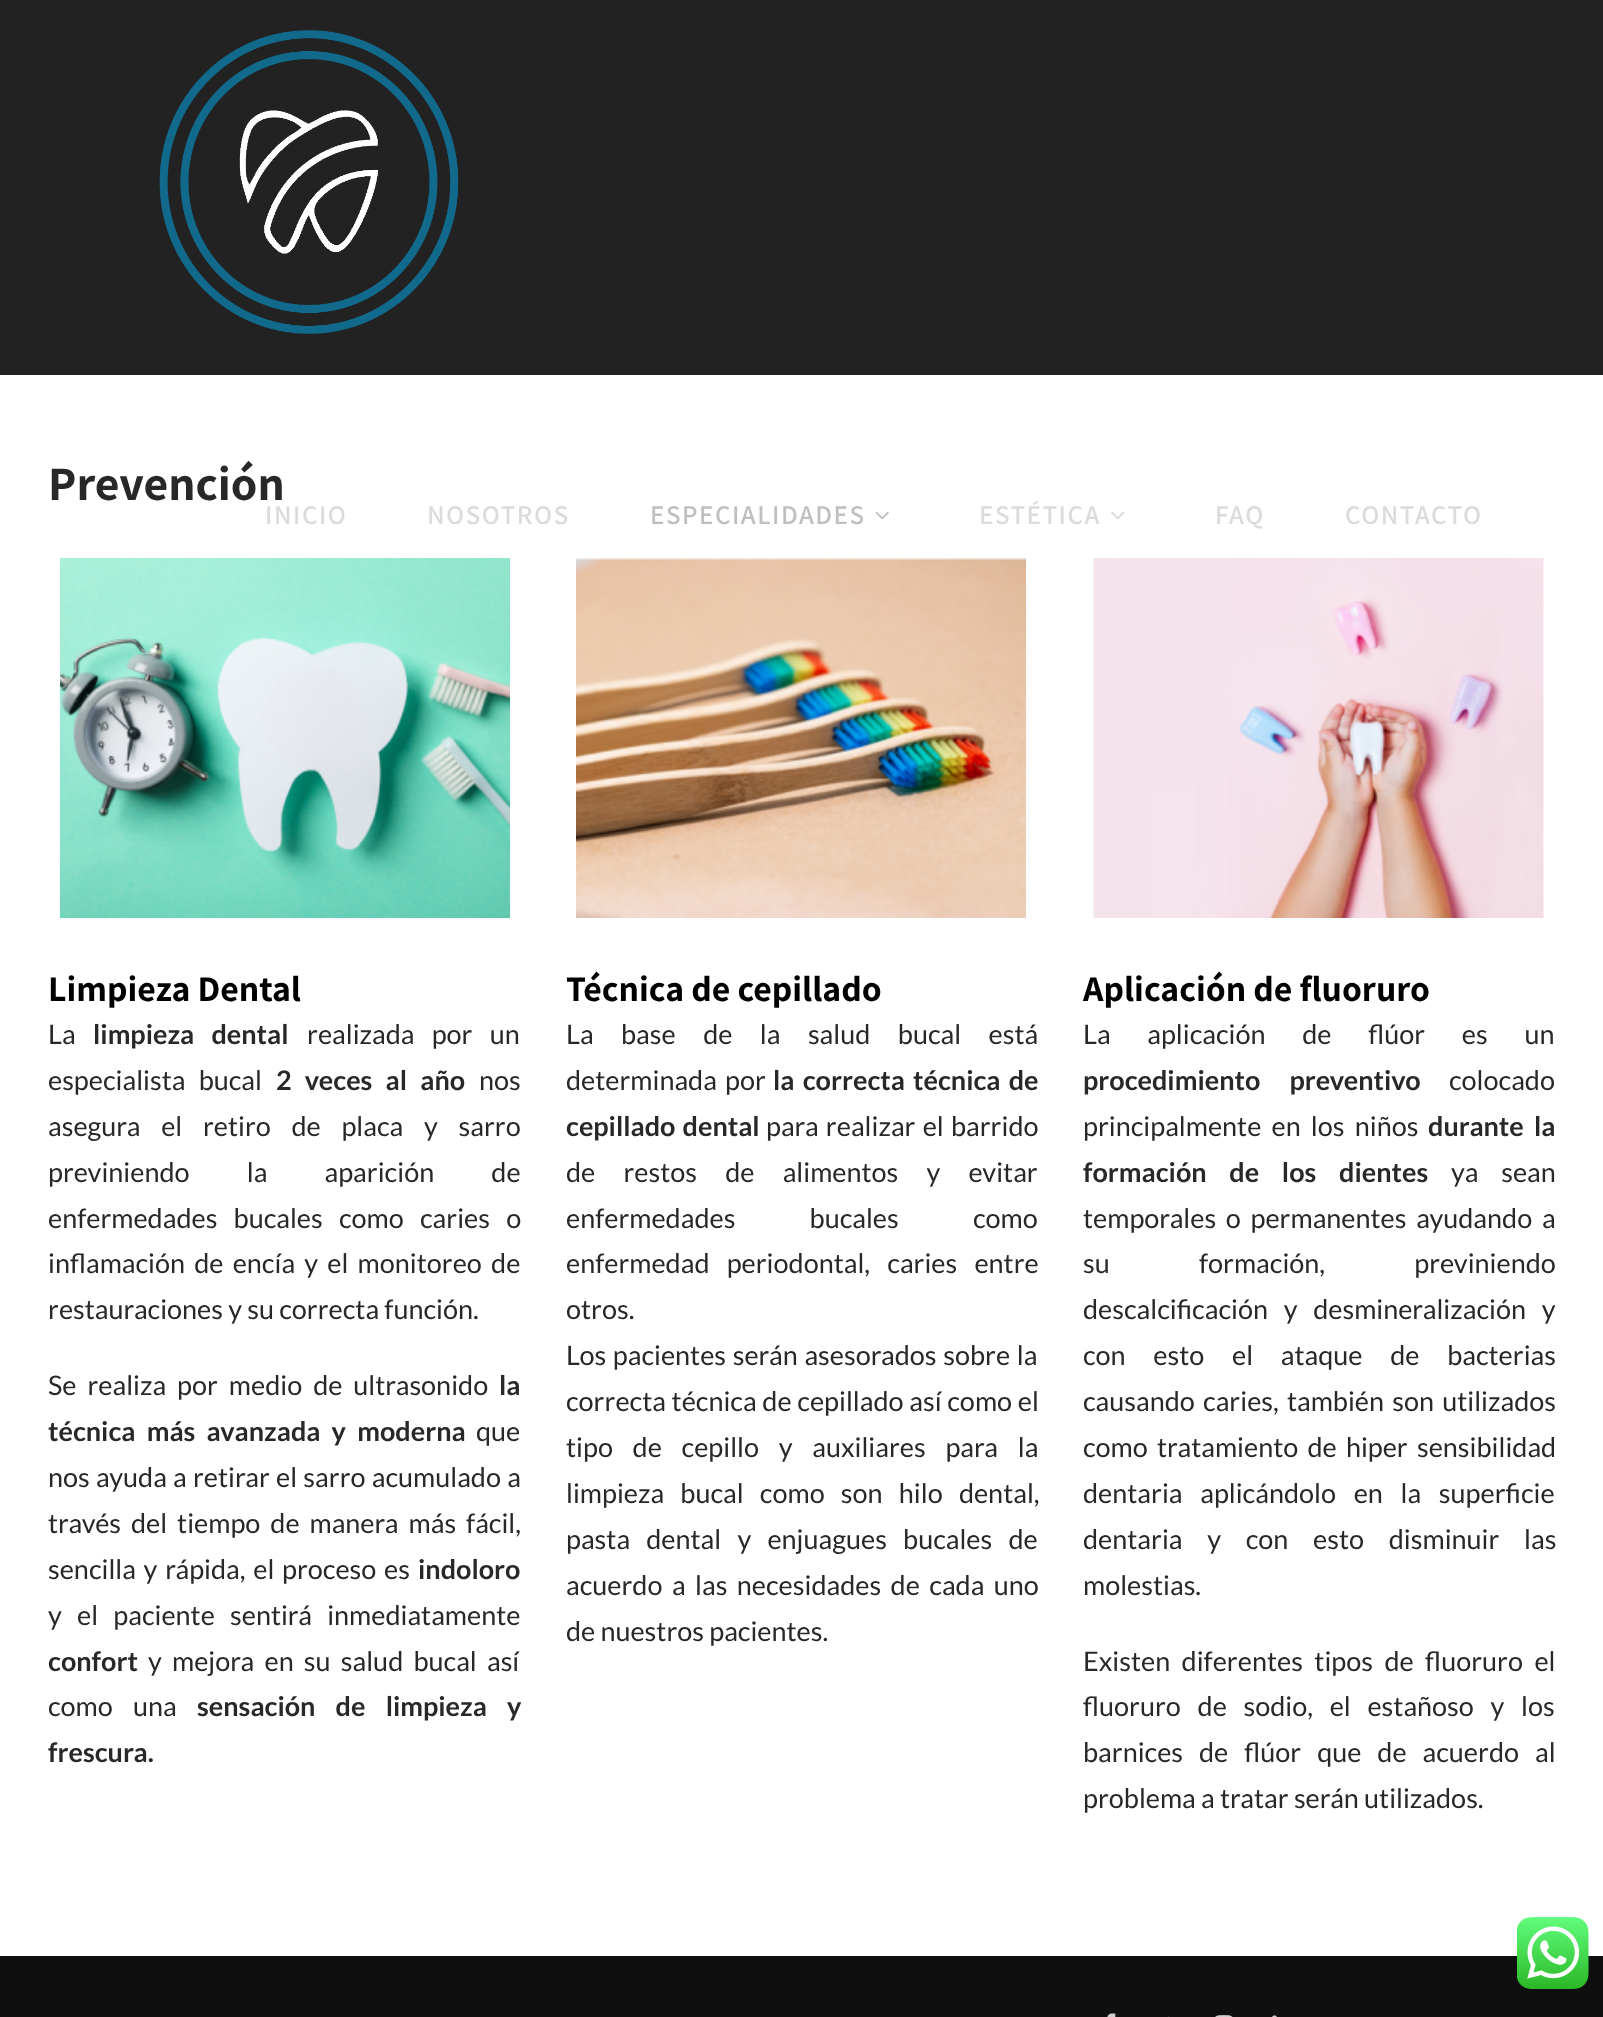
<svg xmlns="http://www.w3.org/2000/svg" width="1603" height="2017">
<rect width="100%" height="100%" fill="#fff"/>
<text x="48" y="500" style="font-family:Assistant;font-size:48px;font-weight:bold;fill:#282828">Prevención</text>
<image x="60" y="558" width="450" height="360" href="media/1.png"/>
<text x="48" y="1001" style="font-family:Assistant;font-size:36px;font-weight:bold;fill:#000">Limpieza Dental</text>
<text x="48" y="1044" style="font-family:Lato;font-size:27px;fill:#282828">La</text>
<text x="93" y="1044" word-spacing="12" style="font-family:Lato;font-size:27px;font-weight:bold;fill:#282828">limpieza dental</text>
<text x="307" y="1044" word-spacing="12" style="font-family:Lato;font-size:27px;fill:#282828">realizada por un</text>
<text x="48" y="1090" word-spacing="8" style="font-family:Lato;font-size:27px;fill:#282828">especialista bucal</text>
<text x="276" y="1090" word-spacing="8" style="font-family:Lato;font-size:27px;font-weight:bold;fill:#282828">2 veces al año</text>
<text x="479" y="1090" style="font-family:Lato;font-size:27px;fill:#282828">nos</text>
<text x="48" y="1136" word-spacing="15.5" style="font-family:Lato;font-size:27px;fill:#282828">asegura el retiro de placa y sarro</text>
<text x="48" y="1182" word-spacing="52" style="font-family:Lato;font-size:27px;fill:#282828">previniendo la aparición de</text>
<text x="48" y="1228" word-spacing="11" style="font-family:Lato;font-size:27px;fill:#282828">enfermedades bucales como caries o</text>
<text x="48" y="1273" word-spacing="4" style="font-family:Lato;font-size:27px;fill:#282828">inflamación de encía y el monitoreo de</text>
<text x="48" y="1319" style="font-family:Lato;font-size:27px;fill:#282828">restauraciones y su correcta función.</text>
<text x="48" y="1395" word-spacing="5.75" style="font-family:Lato;font-size:27px;fill:#282828">Se realiza por medio de ultrasonido</text>
<text x="499" y="1395" style="font-family:Lato;font-size:27px;font-weight:bold;fill:#282828">la</text>
<text x="48" y="1441" word-spacing="6" style="font-family:Lato;font-size:27px;font-weight:bold;fill:#282828">técnica más avanzada y moderna</text>
<text x="476" y="1441" style="font-family:Lato;font-size:27px;fill:#282828">que</text>
<text x="48" y="1487" word-spacing="1" style="font-family:Lato;font-size:27px;fill:#282828">nos ayuda a retirar el sarro acumulado a</text>
<text x="48" y="1533" word-spacing="4.75" style="font-family:Lato;font-size:27px;fill:#282828">través del tiempo de manera más fácil,</text>
<text x="48" y="1579" word-spacing="2.5" style="font-family:Lato;font-size:27px;fill:#282828">sencilla y rápida, el proceso es</text>
<text x="418" y="1579" style="font-family:Lato;font-size:27px;font-weight:bold;fill:#282828">indoloro</text>
<text x="48" y="1625" word-spacing="10" style="font-family:Lato;font-size:27px;fill:#282828">y el paciente sentirá inmediatamente</text>
<text x="48" y="1671" style="font-family:Lato;font-size:27px;font-weight:bold;fill:#282828">confort</text>
<text x="148" y="1671" word-spacing="5" style="font-family:Lato;font-size:27px;fill:#282828">y mejora en su salud bucal así</text>
<text x="48" y="1716" word-spacing="15" style="font-family:Lato;font-size:27px;fill:#282828">como una</text>
<text x="197" y="1716" word-spacing="15" style="font-family:Lato;font-size:27px;font-weight:bold;fill:#282828">sensación de limpieza y</text>
<text x="48" y="1762" style="font-family:Lato;font-size:27px;font-weight:bold;fill:#282828">frescura.</text>
<image x="576" y="558" width="450" height="360" href="media/2.png"/>
<text x="566" y="1001" style="font-family:Assistant;font-size:36px;font-weight:bold;fill:#000">Técnica de cepillado</text>
<text x="566" y="1044" word-spacing="22.25" style="font-family:Lato;font-size:27px;fill:#282828">La base de la salud bucal está</text>
<text x="566" y="1090" word-spacing="3" style="font-family:Lato;font-size:27px;fill:#282828">determinada por</text>
<text x="773" y="1090" word-spacing="3" style="font-family:Lato;font-size:27px;font-weight:bold;fill:#282828">la correcta técnica de</text>
<text x="566" y="1136" word-spacing="2" style="font-family:Lato;font-size:27px;font-weight:bold;fill:#282828">cepillado dental</text>
<text x="766" y="1136" word-spacing="2" style="font-family:Lato;font-size:27px;fill:#282828">para realizar el barrido</text>
<text x="566" y="1182" word-spacing="23" style="font-family:Lato;font-size:27px;fill:#282828">de restos de alimentos y evitar</text>
<text x="566" y="1228" word-spacing="69" style="font-family:Lato;font-size:27px;fill:#282828">enfermedades bucales como</text>
<text x="566" y="1273" word-spacing="12" style="font-family:Lato;font-size:27px;fill:#282828">enfermedad periodontal, caries entre</text>
<text x="566" y="1319" style="font-family:Lato;font-size:27px;fill:#282828">otros.</text>
<text x="566" y="1365" word-spacing="1.5" style="font-family:Lato;font-size:27px;fill:#282828">Los pacientes serán asesorados sobre la</text>
<text x="566" y="1411" word-spacing="0.5" style="font-family:Lato;font-size:27px;fill:#282828">correcta técnica de cepillado así como el</text>
<text x="566" y="1457" word-spacing="14.5" style="font-family:Lato;font-size:27px;fill:#282828">tipo de cepillo y auxiliares para la</text>
<text x="566" y="1503" word-spacing="11" style="font-family:Lato;font-size:27px;fill:#282828">limpieza bucal como son hilo dental,</text>
<text x="566" y="1549" word-spacing="11" style="font-family:Lato;font-size:27px;fill:#282828">pasta dental y enjuagues bucales de</text>
<text x="566" y="1595" word-spacing="4.25" style="font-family:Lato;font-size:27px;fill:#282828">acuerdo a las necesidades de cada uno</text>
<text x="566" y="1641" style="font-family:Lato;font-size:27px;fill:#282828">de nuestros pacientes.</text>
<image x="1093" y="558" width="451" height="360" href="media/3.png"/>
<text x="1083" y="1001" style="font-family:Assistant;font-size:36px;font-weight:bold;fill:#000">Aplicación de fluoruro</text>
<text x="1083" y="1044" word-spacing="31.5" style="font-family:Lato;font-size:27px;fill:#282828">La aplicación de flúor es un</text>
<text x="1083" y="1090" word-spacing="24" style="font-family:Lato;font-size:27px;font-weight:bold;fill:#282828">procedimiento preventivo</text>
<text x="1449" y="1090" style="font-family:Lato;font-size:27px;fill:#282828">colocado</text>
<text x="1083" y="1136" word-spacing="5" style="font-family:Lato;font-size:27px;fill:#282828">principalmente en los niños</text>
<text x="1428" y="1136" word-spacing="5" style="font-family:Lato;font-size:27px;font-weight:bold;fill:#282828">durante la</text>
<text x="1083" y="1182" word-spacing="17.5" style="font-family:Lato;font-size:27px;font-weight:bold;fill:#282828">formación de los dientes</text>
<text x="1451" y="1182" word-spacing="17.5" style="font-family:Lato;font-size:27px;fill:#282828">ya sean</text>
<text x="1083" y="1228" word-spacing="4.5" style="font-family:Lato;font-size:27px;fill:#282828">temporales o permanentes ayudando a</text>
<text x="1083" y="1273" word-spacing="84" style="font-family:Lato;font-size:27px;fill:#282828">su formación, previniendo</text>
<text x="1083" y="1319" word-spacing="10.5" style="font-family:Lato;font-size:27px;fill:#282828">descalcificación y desmineralización y</text>
<text x="1083" y="1365" word-spacing="22.5" style="font-family:Lato;font-size:27px;fill:#282828">con esto el ataque de bacterias</text>
<text x="1083" y="1411" word-spacing="3" style="font-family:Lato;font-size:27px;fill:#282828">causando caries, también son utilizados</text>
<text x="1083" y="1457" word-spacing="4" style="font-family:Lato;font-size:27px;fill:#282828">como tratamiento de hiper sensibilidad</text>
<text x="1083" y="1503" word-spacing="12.5" style="font-family:Lato;font-size:27px;fill:#282828">dentaria aplicándolo en la superficie</text>
<text x="1083" y="1549" word-spacing="19.5" style="font-family:Lato;font-size:27px;fill:#282828">dentaria y con esto disminuir las</text>
<text x="1083" y="1595" style="font-family:Lato;font-size:27px;fill:#282828">molestias.</text>
<text x="1083" y="1671" word-spacing="6.25" style="font-family:Lato;font-size:27px;fill:#282828">Existen diferentes tipos de fluoruro el</text>
<text x="1083" y="1716" word-spacing="11.5" style="font-family:Lato;font-size:27px;fill:#282828">fluoruro de sodio, el estañoso y los</text>
<text x="1083" y="1762" word-spacing="10.75" style="font-family:Lato;font-size:27px;fill:#282828">barnices de flúor que de acuerdo al</text>
<text x="1083" y="1808" style="font-family:Lato;font-size:27px;fill:#282828">problema a tratar serán utilizados.</text>
<rect width="1603" height="375" fill="#222"/>
<image x="159" y="30" width="300" height="304" href="media/4.png"/>
<text x="265" y="524" style="font-family:Assistant;font-size:27px;font-weight:600;letter-spacing:1.5px;fill:#dbdbdb">INICIO</text>
<text x="427" y="524" style="font-family:Assistant;font-size:27px;font-weight:600;letter-spacing:1.5px;fill:#dbdbdb">NOSOTROS</text>
<text x="650" y="524" style="font-family:Assistant;font-size:27px;font-weight:600;letter-spacing:1.5px;fill:#bfbfbf">ESPECIALIDADES</text>
<image x="875" y="511" width="14" height="9" href="media/5.png"/>
<text x="979" y="524" style="font-family:Assistant;font-size:27px;font-weight:600;letter-spacing:1.5px;fill:#dbdbdb">ESTÉTICA</text>
<image x="1111" y="511" width="14" height="9" href="media/6.png"/>
<text x="1215" y="524" style="font-family:Assistant;font-size:27px;font-weight:600;letter-spacing:1.5px;fill:#dbdbdb">FAQ</text>
<text x="1345" y="524" style="font-family:Assistant;font-size:27px;font-weight:600;letter-spacing:1.5px;fill:#dbdbdb">CONTACTO</text>
<rect y="1956" width="1603" height="61" fill="#0f0f0f"/>
<image x="1517" y="1917" width="72" height="72" href="media/7.png"/>
<image x="1107" y="2013" width="9" height="4" href="media/8.png"/>
<image x="1168" y="2016" width="2" height="1" href="media/9.png"/>
<image x="1215" y="2015" width="18" height="2" href="media/10.png"/>
<image x="1272" y="2015" width="5" height="2" href="media/11.png"/>
</svg>
